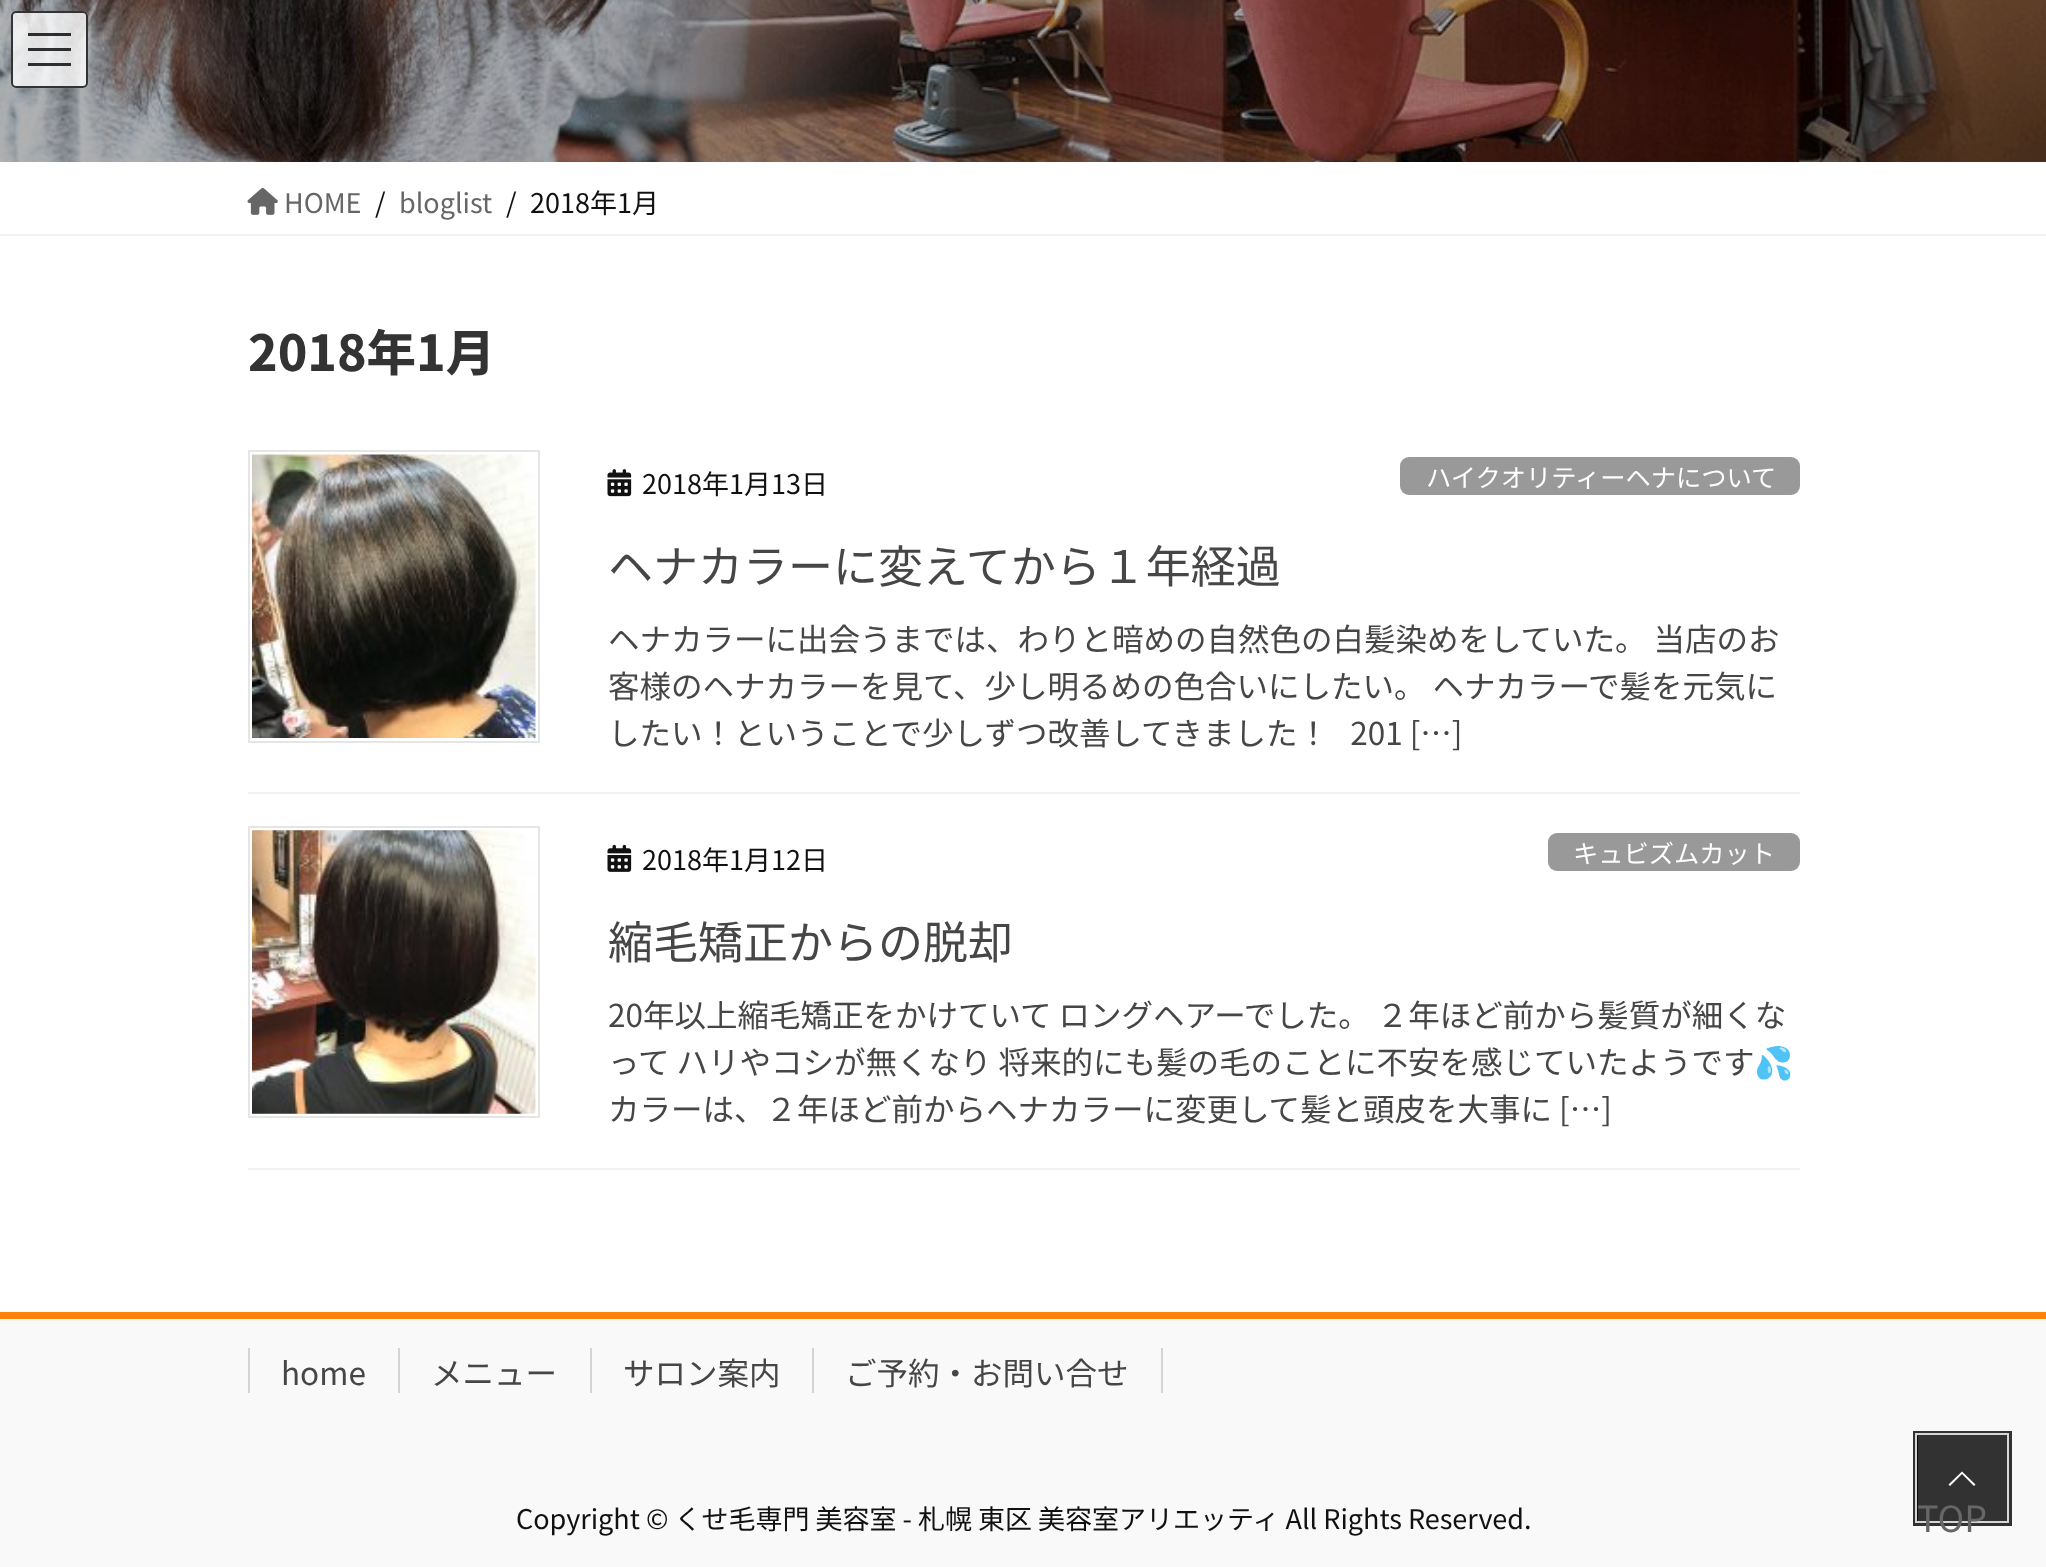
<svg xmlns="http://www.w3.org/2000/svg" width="2046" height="1567">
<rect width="100%" height="100%" fill="#fff"/>
<image x="0" y="0" width="2046" height="162" href="media/1.png"/>
<rect x="11" y="11" width="77" height="77" rx="5" fill="#ffffffcc"/>
<rect x="28" y="33" width="43" height="3" fill="#000000cc"/>
<rect x="28" y="48" width="43" height="3" fill="#000000cc"/>
<rect x="28" y="63" width="43" height="3" fill="#000000cc"/>
<rect x="12" y="12" width="75" height="75" rx="4" fill="none" stroke="#333" stroke-width="2"/>
<rect y="234" width="2046" height="2" fill="#f2f2f2"/>
<image x="247" y="187" width="31" height="28" href="media/2.png"/>
<text x="284" y="213" style="font-family:Noto Sans JP;font-size:27px;fill:#666">HOME</text>
<text x="375" y="213" style="font-family:Noto Sans JP;font-size:27px;fill:#111">/</text>
<text x="399" y="213" style="font-family:Noto Sans JP;font-size:27px;fill:#666">bloglist</text>
<text x="506" y="213" style="font-family:Noto Sans JP;font-size:27px;fill:#111">/</text>
<text x="530" y="213" style="font-family:Noto Sans JP;font-size:27px;fill:#111">2018年1月</text>
<text x="248" y="371" style="font-family:Noto Sans JP;font-size:49.5px;font-weight:800;fill:#333">2018年1月</text>
<rect x="248" y="792" width="1552" height="2" fill="#f2f2f2"/>
<rect x="249" y="451" width="290" height="291" fill="none" stroke="#e5e5e5" stroke-width="2"/>
<image x="252" y="454" width="284" height="284" href="media/3.png"/>
<image x="607" y="469" width="25" height="28" href="media/4.png"/>
<text x="642" y="494" style="font-family:Noto Sans JP;font-size:27px;fill:#111">2018年1月13日</text>
<rect x="1400" y="457" width="400" height="38" rx="9" fill="#999"/>
<text x="1426" y="487" style="font-family:Noto Sans JP;font-size:25.25px;fill:#fff">ハイクオリティーヘナについて</text>
<text x="608" y="583" style="font-family:Noto Sans JP;font-size:45px;fill:#464646">ヘナカラーに変えてから１年経過</text>
<text x="608" y="651" style="font-family:Noto Sans JP;font-size:31.5px;fill:#464646">ヘナカラーに出会うまでは、わりと暗めの自然色の白髪染めをしていた。 当店のお</text>
<text x="608" y="698" style="font-family:Noto Sans JP;font-size:31.5px;fill:#464646">客様のヘナカラーを見て、少し明るめの色合いにしたい。 ヘナカラーで髪を元気に</text>
<text x="608" y="745" style="font-family:Noto Sans JP;font-size:31.5px;fill:#464646" xml:space="preserve">したい！ということで少しずつ改善してきました！   201 […]</text>
<rect x="248" y="1168" width="1552" height="2" fill="#f2f2f2"/>
<rect x="249" y="827" width="290" height="290" fill="none" stroke="#e5e5e5" stroke-width="2"/>
<image x="252" y="830" width="284" height="284" href="media/5.png"/>
<image x="607" y="844" width="25" height="28" href="media/6.png"/>
<text x="642" y="870" style="font-family:Noto Sans JP;font-size:27px;fill:#111">2018年1月12日</text>
<rect x="1548" y="833" width="252" height="38" rx="9" fill="#999"/>
<text x="1573" y="863" style="font-family:Noto Sans JP;font-size:25.25px;fill:#fff">キュビズムカット</text>
<text x="608" y="959" style="font-family:Noto Sans JP;font-size:45px;fill:#464646">縮毛矯正からの脱却</text>
<text x="608" y="1027" style="font-family:Noto Sans JP;font-size:31.5px;fill:#464646">20年以上縮毛矯正をかけていて ロングヘアーでした。 ２年ほど前から髪質が細くな</text>
<text x="608" y="1074" style="font-family:Noto Sans JP;font-size:31.5px;fill:#464646">って ハリやコシが無くなり 将来的にも髪の毛のことに不安を感じていたようです</text>
<text x="1754" y="1074" style="font-family:Noto Color Emoji;font-size:31.5px;fill:#464646">💦</text>
<text x="608" y="1121" style="font-family:Noto Sans JP;font-size:31.5px;fill:#464646">カラーは、２年ほど前からヘナカラーに変更して髪と頭皮を大事に […]</text>
<rect y="1319" width="2046" height="248" fill="#f9f9f9"/>
<rect y="1312" width="2046" height="7" fill="#ff8308"/>
<text x="281" y="1385" style="font-family:Noto Sans JP;font-size:31.5px;fill:#464646">home</text>
<rect x="248" y="1348" width="2" height="45" fill="#d4d4d4"/>
<text x="431" y="1385" style="font-family:Noto Sans JP;font-size:31.5px;fill:#464646">メニュー</text>
<rect x="398" y="1348" width="2" height="45" fill="#d4d4d4"/>
<text x="623" y="1385" style="font-family:Noto Sans JP;font-size:31.5px;fill:#464646">サロン案内</text>
<rect x="590" y="1348" width="2" height="45" fill="#d4d4d4"/>
<text x="845" y="1385" style="font-family:Noto Sans JP;font-size:31.5px;fill:#464646">ご予約・お問い合せ</text>
<rect x="1161" y="1348" width="2" height="45" fill="#d4d4d4"/>
<rect x="812" y="1348" width="2" height="45" fill="#d4d4d4"/>
<text x="516" y="1529" style="font-family:Noto Sans JP;font-size:27px;fill:#111">Copyright © くせ毛専門 美容室 - 札幌 東区 美容室アリエッティ All Rights Reserved.</text>
<rect x="1915.5" y="1433.5" width="94" height="90" fill="none" stroke="#323232" stroke-width="5"/>
<rect x="1916" y="1434" width="92" height="88" fill="none" stroke="#d6d6d6" stroke-width="2"/>
<rect x="1917" y="1436" width="90" height="85" fill="#000000cc"/>
<path d="M1975.5 1484.5l-1.5 1.5l-12-12l-12 12l-1.5-1.5l13.5-13z" fill="#fff"/>
<text x="1917" y="1532" style="font-family:Noto Sans JP;font-size:36px;fill:#666">TOP</text>
</svg>
